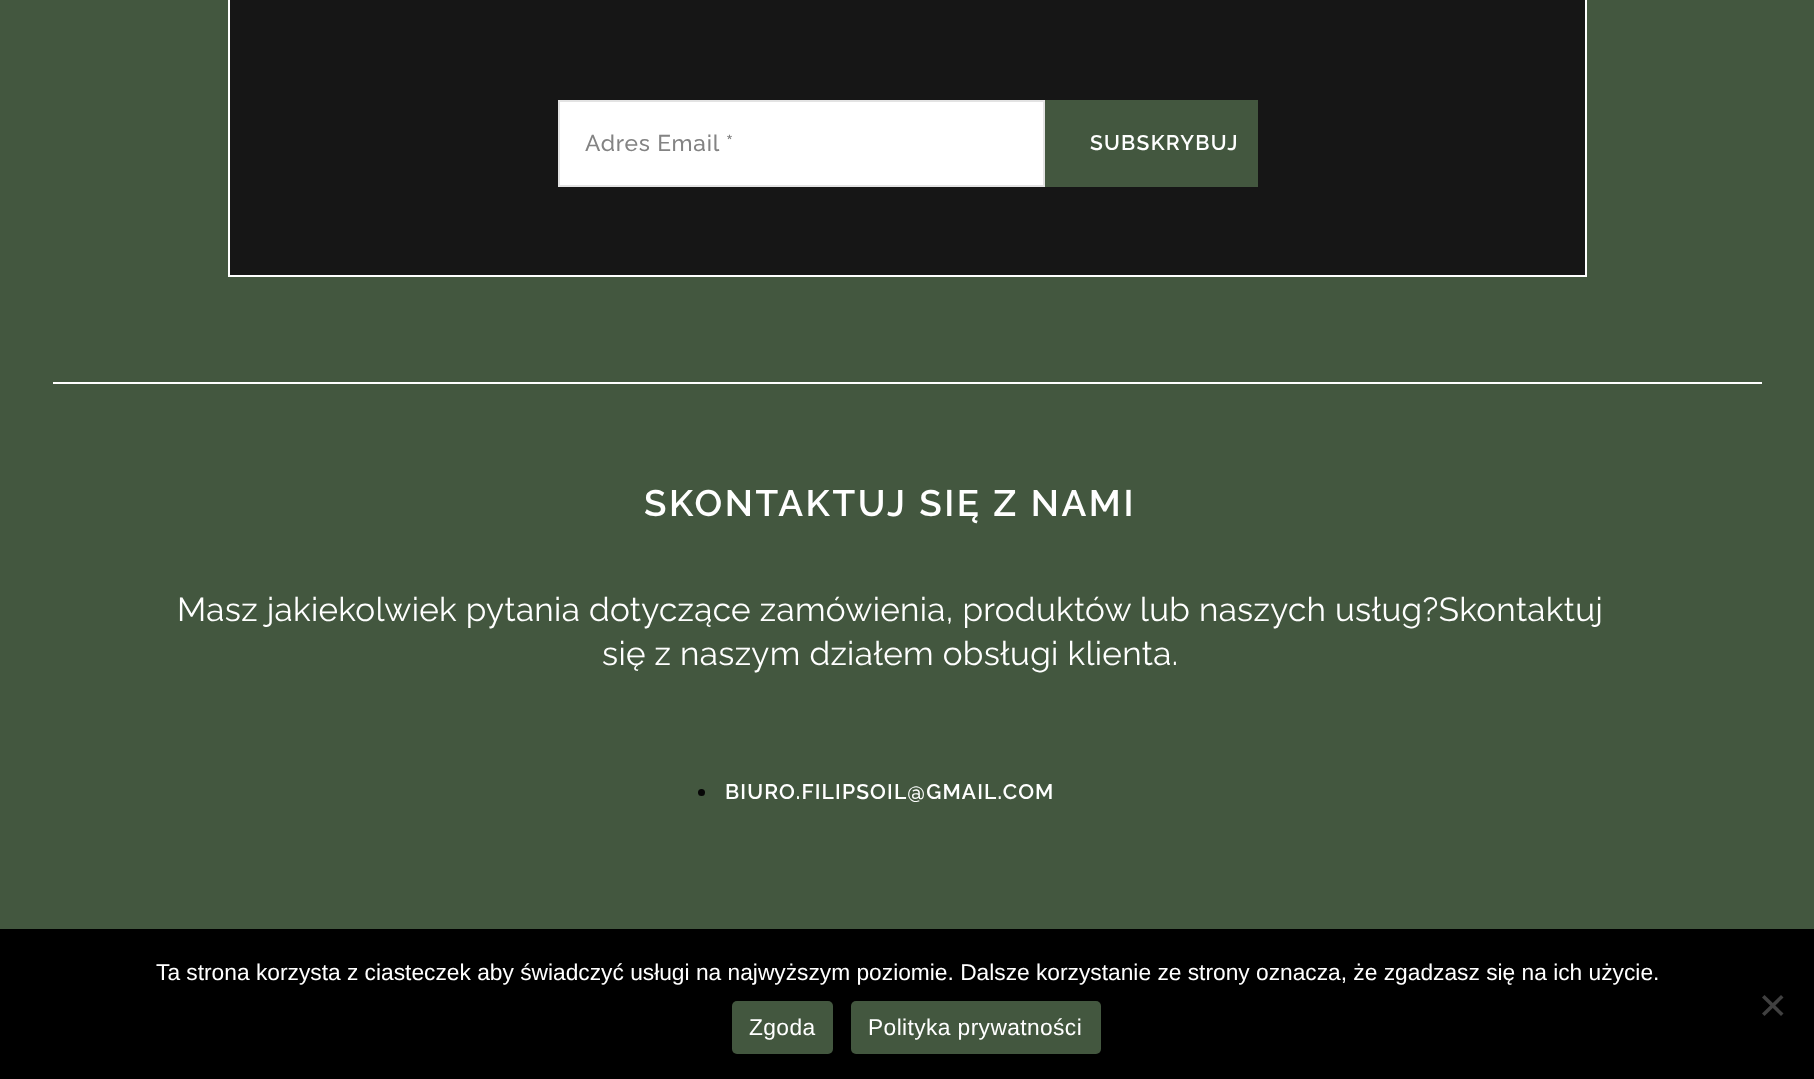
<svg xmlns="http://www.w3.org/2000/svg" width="1814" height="1079">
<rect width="100%" height="100%" fill="#43573f"/>
<rect x="53" y="382" width="1709" height="2" fill="#fff"/>
<rect x="229" y="-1" width="1357" height="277" fill="#161616" stroke="#fff" stroke-width="2"/>
<rect x="559" y="101" width="485" height="85" fill="#fff" stroke="#e3e3e3" stroke-width="2"/>
<text x="585" y="151" style="font-family:Raleway;font-size:22.75px;font-weight:500;letter-spacing:0.75px;fill:#838383">Adres Email *</text>
<rect x="1045" y="100" width="213" height="87" fill="#43573f"/>
<text x="1090" y="150" style="font-family:Raleway;font-size:21px;font-weight:600;letter-spacing:1.25px;fill:#fff">SUBSKRYBUJ</text>
<text x="644" y="516" style="font-family:Raleway;font-size:36.75px;font-weight:600;letter-spacing:2.6px;fill:#fff">SKONTAKTUJ SIĘ Z NAMI</text>
<text x="177" y="621" style="font-family:Raleway;font-size:33.25px;letter-spacing:0.33px;fill:#fff">Masz jakiekolwiek pytania dotyczące zamówienia, produktów lub naszych usług?Skontaktuj</text>
<text x="602" y="665" style="font-family:Raleway;font-size:33.25px;letter-spacing:0.33px;fill:#fff">się z naszym działem obsługi klienta.</text>
<circle cx="701.5" cy="792.5" r="3.5" fill="#070707"/>
<text x="725" y="799" style="font-family:Raleway;font-size:21px;font-weight:600;letter-spacing:1.15px;fill:#fff">BIURO.FILIPSOIL@GMAIL.COM</text>
<rect y="929" width="1814" height="150" fill="#000"/>
<text x="156" y="980" style="font-family:Liberation Sans;font-size:22.75px;fill:#fff">Ta strona korzysta z ciasteczek aby świadczyć usługi na najwyższym poziomie. Dalsze korzystanie ze strony oznacza, że zgadzasz się na ich użycie.</text>
<path d="M1781 995l2.5 2.5l-19 18.5l-2.5-2.5z" fill="#404040"/>
<path d="M1762 997.5l2.5-2.5l19 18.5l-2.5 2.5z" fill="#404040"/>
<rect x="732" y="1001" width="101" height="53" rx="5" fill="#43573f"/>
<text x="749" y="1035" style="font-family:Liberation Sans;font-size:22.75px;letter-spacing:0.4px;fill:#fff">Zgoda</text>
<rect x="851" y="1001" width="250" height="53" rx="5" fill="#43573f"/>
<text x="868" y="1035" style="font-family:Liberation Sans;font-size:22.75px;letter-spacing:0.4px;fill:#fff">Polityka prywatności</text>
</svg>
